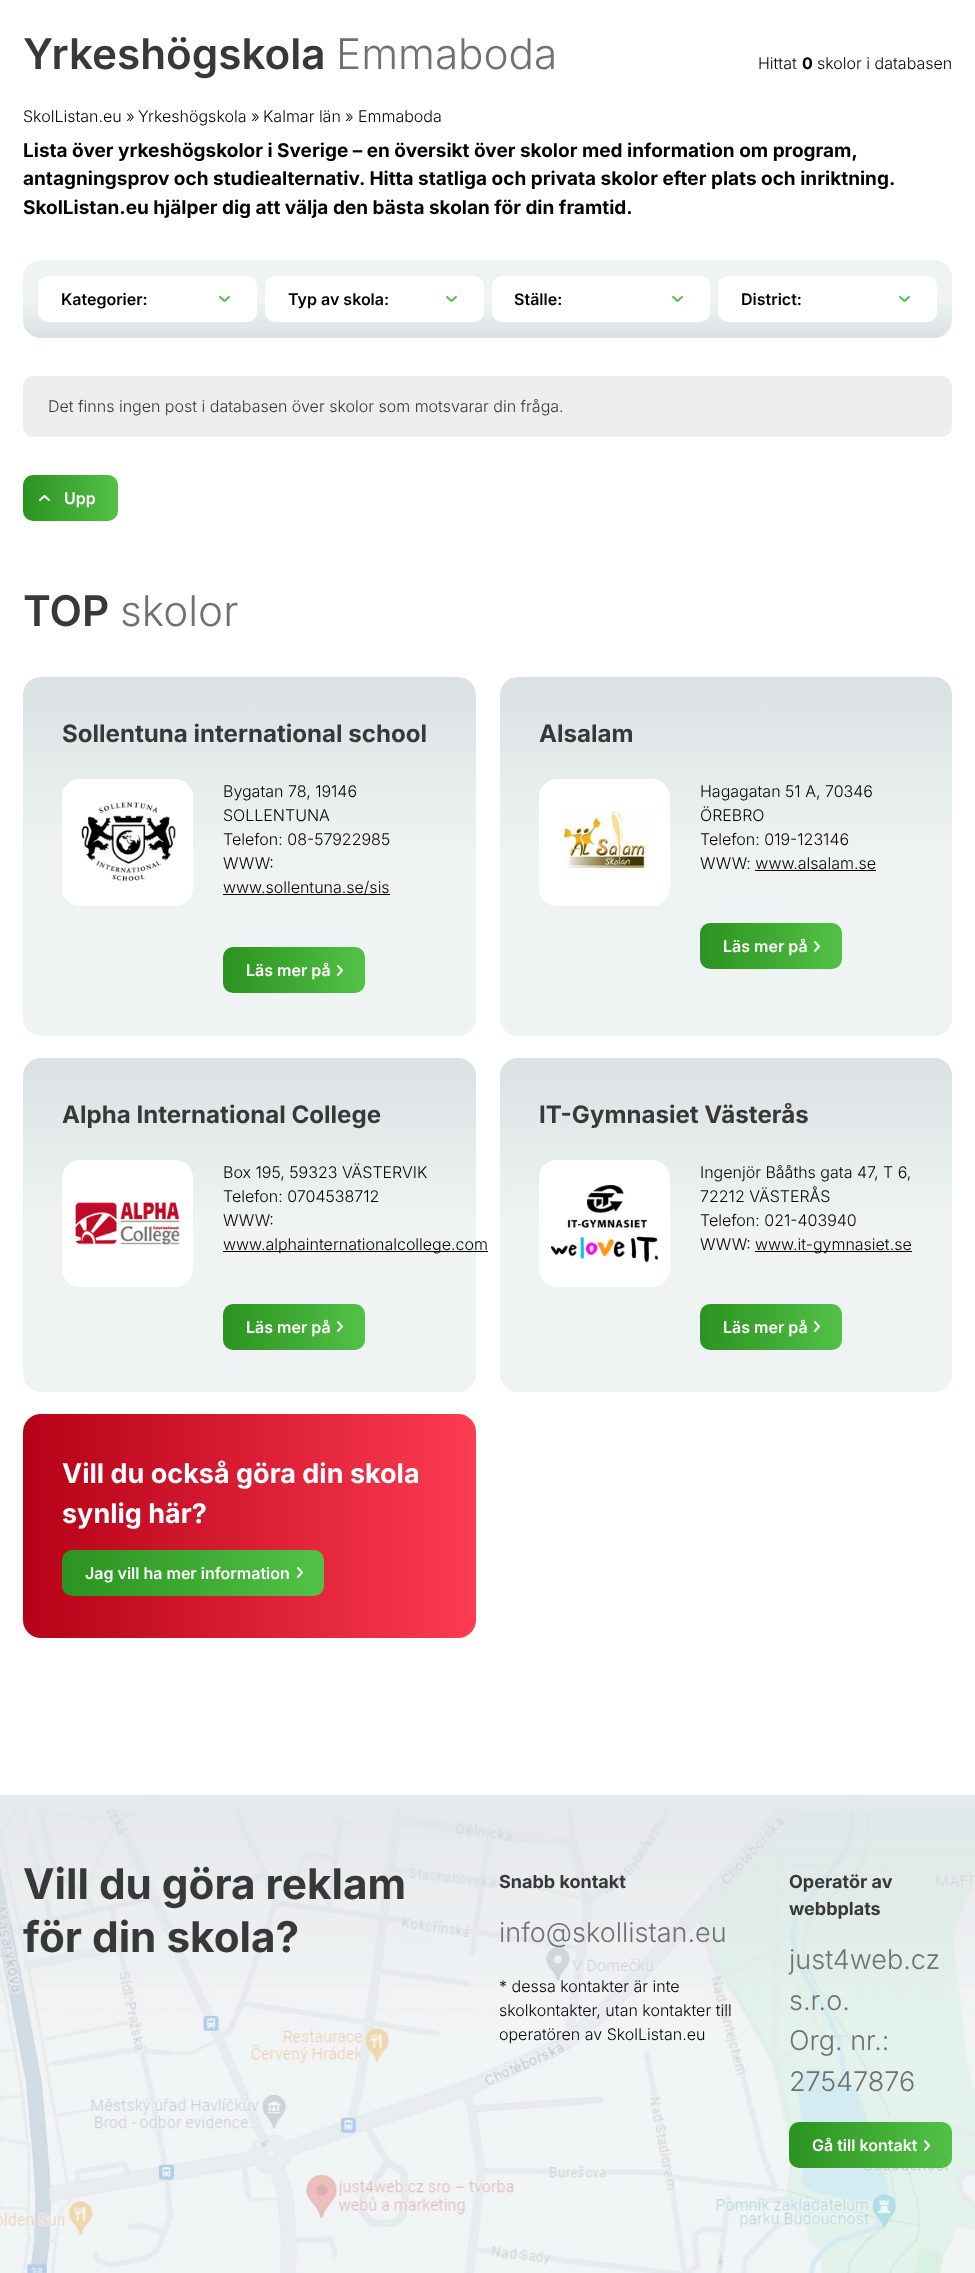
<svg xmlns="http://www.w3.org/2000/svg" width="975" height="2273">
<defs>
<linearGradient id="g1" gradientUnits="userSpaceOnUse" x1="488" y1="338" x2="488" y2="260"><stop offset="0" stop-color="#dbe1e3"/><stop offset="0.5" stop-color="#eff3f3"/><stop offset="1" stop-color="#eff3f3"/></linearGradient>
<linearGradient id="g2" gradientUnits="userSpaceOnUse" x1="23" y1="498" x2="118" y2="498"><stop offset="0" stop-color="#2b931f"/><stop offset="1" stop-color="#53c147"/></linearGradient>
<linearGradient id="g3" gradientUnits="userSpaceOnUse" x1="250" y1="1036" x2="250" y2="677"><stop offset="0" stop-color="#eff3f3"/><stop offset="0.5" stop-color="#eff3f3"/><stop offset="1" stop-color="#dbe1e3"/></linearGradient>
<linearGradient id="g4" gradientUnits="userSpaceOnUse" x1="223" y1="970" x2="365" y2="970"><stop offset="0" stop-color="#2b931f"/><stop offset="1" stop-color="#53c147"/></linearGradient>
<linearGradient id="g5" gradientUnits="userSpaceOnUse" x1="726" y1="1036" x2="726" y2="677"><stop offset="0" stop-color="#eff3f3"/><stop offset="0.5" stop-color="#eff3f3"/><stop offset="1" stop-color="#dbe1e3"/></linearGradient>
<linearGradient id="g6" gradientUnits="userSpaceOnUse" x1="700" y1="946" x2="842" y2="946"><stop offset="0" stop-color="#2b931f"/><stop offset="1" stop-color="#53c147"/></linearGradient>
<linearGradient id="g7" gradientUnits="userSpaceOnUse" x1="250" y1="1392" x2="250" y2="1058"><stop offset="0" stop-color="#eff3f3"/><stop offset="0.5" stop-color="#eff3f3"/><stop offset="1" stop-color="#dbe1e3"/></linearGradient>
<linearGradient id="g8" gradientUnits="userSpaceOnUse" x1="223" y1="1327" x2="365" y2="1327"><stop offset="0" stop-color="#2b931f"/><stop offset="1" stop-color="#53c147"/></linearGradient>
<linearGradient id="g9" gradientUnits="userSpaceOnUse" x1="726" y1="1392" x2="726" y2="1058"><stop offset="0" stop-color="#eff3f3"/><stop offset="0.5" stop-color="#eff3f3"/><stop offset="1" stop-color="#dbe1e3"/></linearGradient>
<linearGradient id="g10" gradientUnits="userSpaceOnUse" x1="700" y1="1327" x2="842" y2="1327"><stop offset="0" stop-color="#2b931f"/><stop offset="1" stop-color="#53c147"/></linearGradient>
<linearGradient id="g11" gradientUnits="userSpaceOnUse" x1="23" y1="1526" x2="476" y2="1526"><stop offset="0" stop-color="#b50117"/><stop offset="1" stop-color="#fd3b51"/></linearGradient>
<linearGradient id="g12" gradientUnits="userSpaceOnUse" x1="62" y1="1573" x2="324" y2="1573"><stop offset="0" stop-color="#2b931f"/><stop offset="1" stop-color="#53c147"/></linearGradient>
<linearGradient id="g13" gradientUnits="userSpaceOnUse" x1="789" y1="2145" x2="952" y2="2145"><stop offset="0" stop-color="#2b931f"/><stop offset="1" stop-color="#53c147"/></linearGradient>
</defs>
<rect width="100%" height="100%" fill="#fff"/>
<text x="23" y="69" style="font-family:Inter;font-size:42.25px;font-weight:600;fill:#383838">Yrkeshögskola</text>
<text x="336" y="69" style="font-family:Inter;font-size:42.25px;font-weight:300;fill:#707070">Emmaboda</text>
<text x="758" y="69" style="font-family:Inter;font-size:16px;font-weight:300;fill:#020203">Hittat</text>
<text x="802" y="69" style="font-family:Inter;font-size:16px;font-weight:bold;fill:#020203">0</text>
<text x="817" y="69" style="font-family:Inter;font-size:16px;font-weight:300;fill:#020203">skolor i databasen</text>
<text x="23" y="122" style="font-family:Inter;font-size:16px;font-weight:300;fill:#020203">SkolListan.eu</text>
<text x="126" y="122" style="font-family:Inter;font-size:16px;font-weight:300;fill:#020203">»</text>
<text x="138" y="122" style="font-family:Inter;font-size:16px;font-weight:300;fill:#020203">Yrkeshögskola</text>
<text x="251" y="122" style="font-family:Inter;font-size:16px;font-weight:300;fill:#020203">»</text>
<text x="263" y="122" style="font-family:Inter;font-size:16px;font-weight:300;fill:#020203">Kalmar län</text>
<text x="345" y="122" style="font-family:Inter;font-size:16px;font-weight:300;fill:#020203">»</text>
<text x="358" y="122" style="font-family:Inter;font-size:16px;font-weight:300;fill:#020203">Emmaboda</text>
<text x="23" y="157" style="font-family:Inter;font-size:19px;font-weight:bold;fill:#020203">Lista över yrkeshögskolor i Sverige – en översikt över skolor med information om program,</text>
<text x="23" y="185" style="font-family:Inter;font-size:19px;font-weight:bold;fill:#020203">antagningsprov och studiealternativ. Hitta statliga och privata skolor efter plats och inriktning.</text>
<text x="23" y="214" style="font-family:Inter;font-size:19px;font-weight:bold;fill:#020203">SkolListan.eu hjälper dig att välja den bästa skolan för din framtid.</text>
<rect x="23" y="260" width="929" height="78" rx="18" fill="url(#g1)"/>
<rect x="38" y="276" width="219" height="46" rx="10" fill="#fff"/>
<image x="219" y="296" width="11" height="6" href="media/1.png"/>
<text x="61" y="305" style="font-family:Inter;font-size:16px;font-weight:600;fill:#020203">Kategorier:</text>
<rect x="265" y="276" width="219" height="46" rx="10" fill="#fff"/>
<image x="446" y="296" width="11" height="6" href="media/1.png"/>
<text x="288" y="305" style="font-family:Inter;font-size:16px;font-weight:600;fill:#020203">Typ av skola:</text>
<rect x="492" y="276" width="218" height="46" rx="10" fill="#fff"/>
<image x="672" y="296" width="11" height="6" href="media/1.png"/>
<text x="514" y="305" style="font-family:Inter;font-size:16px;font-weight:600;fill:#020203">Ställe:</text>
<rect x="718" y="276" width="219" height="46" rx="10" fill="#fff"/>
<image x="899" y="296" width="11" height="6" href="media/1.png"/>
<text x="741" y="305" style="font-family:Inter;font-size:16px;font-weight:600;fill:#020203">District:</text>
<rect x="23" y="376" width="929" height="61" rx="10" fill="#eee"/>
<text x="48" y="412" style="font-family:Inter;font-size:16px;font-weight:300;fill:#383838">Det finns ingen post i databasen över skolor som motsvarar din fråga.</text>
<rect x="23" y="475" width="95" height="46" rx="10" fill="url(#g2)"/>
<image x="39" y="495" width="11" height="6" href="media/2.png"/>
<text x="64" y="504" style="font-family:Inter;font-size:16px;font-weight:600;fill:#fff">Upp</text>
<text x="23" y="626" style="font-family:Inter;font-size:42.25px;font-weight:600;fill:#383838">TOP</text>
<text x="120" y="626" style="font-family:Inter;font-size:42.25px;font-weight:300;fill:#707070">skolor</text>
<rect x="23" y="677" width="453" height="359" rx="18" fill="url(#g3)"/>
<text x="62" y="742" style="font-family:Inter;font-size:24.1px;font-weight:bold;fill:#383838">Sollentuna international school</text>
<rect x="62" y="779" width="131" height="127" rx="18" fill="#fff"/>
<image x="81" y="802" width="95" height="80" href="media/3.png"/>
<text x="223" y="797" style="font-family:Inter;font-size:16px;font-weight:300;fill:#020203">Bygatan 78, 19146</text>
<text x="223" y="821" style="font-family:Inter;font-size:16px;font-weight:300;fill:#020203">SOLLENTUNA</text>
<text x="223" y="845" style="font-family:Inter;font-size:16px;font-weight:300;fill:#020203">Telefon: 08-57922985</text>
<text x="223" y="869" style="font-family:Inter;font-size:16px;font-weight:300;fill:#020203">WWW:</text>
<rect x="223" y="894" width="167" height="1" fill="#020203"/>
<text x="223" y="893" style="font-family:Inter;font-size:16px;font-weight:300;fill:#020203">www.sollentuna.se/sis</text>
<rect x="223" y="947" width="142" height="46" rx="10" fill="url(#g4)"/>
<image x="337" y="965" width="6" height="11" href="media/4.png"/>
<text x="246" y="976" style="font-family:Inter;font-size:16px;font-weight:600;fill:#fff">Läs mer på</text>
<rect x="500" y="677" width="452" height="359" rx="18" fill="url(#g5)"/>
<text x="539" y="742" style="font-family:Inter;font-size:24.1px;font-weight:bold;fill:#383838">Alsalam</text>
<rect x="539" y="779" width="131" height="127" rx="18" fill="#fff"/>
<image x="563" y="810" width="93" height="67" href="media/5.png"/>
<text x="700" y="797" style="font-family:Inter;font-size:16px;font-weight:300;fill:#020203">Hagagatan 51 A, 70346</text>
<text x="700" y="821" style="font-family:Inter;font-size:16px;font-weight:300;fill:#020203">ÖREBRO</text>
<text x="700" y="845" style="font-family:Inter;font-size:16px;font-weight:300;fill:#020203">Telefon: 019-123146</text>
<text x="700" y="869" style="font-family:Inter;font-size:16px;font-weight:300;fill:#020203">WWW: www.alsalam.se</text>
<rect x="755" y="870" width="121" height="1" fill="#020203"/>
<rect x="700" y="923" width="142" height="46" rx="10" fill="url(#g6)"/>
<image x="814" y="941" width="6" height="11" href="media/4.png"/>
<text x="723" y="952" style="font-family:Inter;font-size:16px;font-weight:600;fill:#fff">Läs mer på</text>
<rect x="23" y="1058" width="453" height="334" rx="18" fill="url(#g7)"/>
<text x="62" y="1123" style="font-family:Inter;font-size:24.1px;font-weight:bold;fill:#383838">Alpha International College</text>
<rect x="62" y="1160" width="131" height="127" rx="18" fill="#fff"/>
<image x="75" y="1202" width="106" height="43" href="media/6.png"/>
<text x="223" y="1178" style="font-family:Inter;font-size:16px;font-weight:300;fill:#020203">Box 195, 59323 VÄSTERVIK</text>
<text x="223" y="1202" style="font-family:Inter;font-size:16px;font-weight:300;fill:#020203">Telefon: 0704538712</text>
<text x="223" y="1226" style="font-family:Inter;font-size:16px;font-weight:300;fill:#020203">WWW:</text>
<rect x="223" y="1251" width="265" height="1" fill="#020203"/>
<text x="223" y="1250" style="font-family:Inter;font-size:16px;font-weight:300;fill:#020203">www.alphainternationalcollege.com</text>
<rect x="223" y="1304" width="142" height="46" rx="10" fill="url(#g8)"/>
<image x="337" y="1321" width="6" height="11" href="media/4.png"/>
<text x="246" y="1333" style="font-family:Inter;font-size:16px;font-weight:600;fill:#fff">Läs mer på</text>
<rect x="500" y="1058" width="452" height="334" rx="18" fill="url(#g9)"/>
<text x="539" y="1123" style="font-family:Inter;font-size:24.1px;font-weight:bold;fill:#383838">IT-Gymnasiet Västerås</text>
<rect x="539" y="1160" width="131" height="127" rx="18" fill="#fff"/>
<image x="551" y="1185" width="107" height="77" href="media/7.png"/>
<text x="700" y="1178" style="font-family:Inter;font-size:16px;font-weight:300;fill:#020203">Ingenjör Bååths gata 47, T 6,</text>
<text x="700" y="1202" style="font-family:Inter;font-size:16px;font-weight:300;fill:#020203">72212 VÄSTERÅS</text>
<text x="700" y="1226" style="font-family:Inter;font-size:16px;font-weight:300;fill:#020203">Telefon: 021-403940</text>
<text x="700" y="1250" style="font-family:Inter;font-size:16px;font-weight:300;fill:#020203">WWW:</text>
<rect x="755" y="1251" width="157" height="1" fill="#020203"/>
<text x="755" y="1250" style="font-family:Inter;font-size:16px;font-weight:300;fill:#020203">www.it-gymnasiet.se</text>
<rect x="700" y="1304" width="142" height="46" rx="10" fill="url(#g10)"/>
<image x="814" y="1321" width="6" height="11" href="media/4.png"/>
<text x="723" y="1333" style="font-family:Inter;font-size:16px;font-weight:600;fill:#fff">Läs mer på</text>
<rect x="23" y="1414" width="453" height="224" rx="18" fill="url(#g11)"/>
<text x="62" y="1483" style="font-family:Inter;font-size:27px;font-weight:bold;fill:#fff">Vill du också göra din skola</text>
<text x="62" y="1523" style="font-family:Inter;font-size:27px;font-weight:bold;fill:#fff">synlig här?</text>
<rect x="62" y="1550" width="262" height="46" rx="10" fill="url(#g12)"/>
<image x="297" y="1567" width="6" height="11" href="media/8.png"/>
<text x="85" y="1579" style="font-family:Inter;font-size:16px;font-weight:600;fill:#fff">Jag vill ha mer information</text>
<image x="0" y="1795" width="975" height="478" href="media/9.png"/>
<text x="23" y="1899" style="font-family:Inter;font-size:42.25px;font-weight:bold;fill:#383838">Vill du göra reklam</text>
<text x="23" y="1952" style="font-family:Inter;font-size:42.25px;font-weight:bold;fill:#383838">för din skola?</text>
<text x="499" y="1888" style="font-family:Inter;font-size:18px;font-weight:bold;fill:#383838">Snabb kontakt</text>
<text x="499" y="1942" style="font-family:Inter;font-size:27px;font-weight:300;fill:#707070">info@skollistan.eu</text>
<text x="499" y="1992" style="font-family:Inter;font-size:16px;font-weight:300;fill:#020203">* dessa kontakter är inte</text>
<text x="499" y="2016" style="font-family:Inter;font-size:16px;font-weight:300;fill:#020203">skolkontakter, utan kontakter till</text>
<text x="499" y="2040" style="font-family:Inter;font-size:16px;font-weight:300;fill:#020203">operatören av SkolListan.eu</text>
<text x="789" y="1888" style="font-family:Inter;font-size:18px;font-weight:bold;fill:#383838">Operatör av</text>
<text x="789" y="1915" style="font-family:Inter;font-size:18px;font-weight:bold;fill:#383838">webbplats</text>
<text x="789" y="1969" style="font-family:Inter;font-size:27px;font-weight:300;fill:#707070">just4web.cz</text>
<text x="789" y="2010" style="font-family:Inter;font-size:27px;font-weight:300;fill:#707070">s.r.o.</text>
<text x="789" y="2050" style="font-family:Inter;font-size:27px;font-weight:300;fill:#707070">Org. nr.:</text>
<text x="789" y="2091" style="font-family:Inter;font-size:27px;font-weight:300;fill:#707070">27547876</text>
<rect x="789" y="2122" width="163" height="46" rx="10" fill="url(#g13)"/>
<image x="924" y="2140" width="6" height="11" href="media/10.png"/>
<text x="812" y="2151" style="font-family:Inter;font-size:16px;font-weight:600;fill:#fff">Gå till kontakt</text>
</svg>
